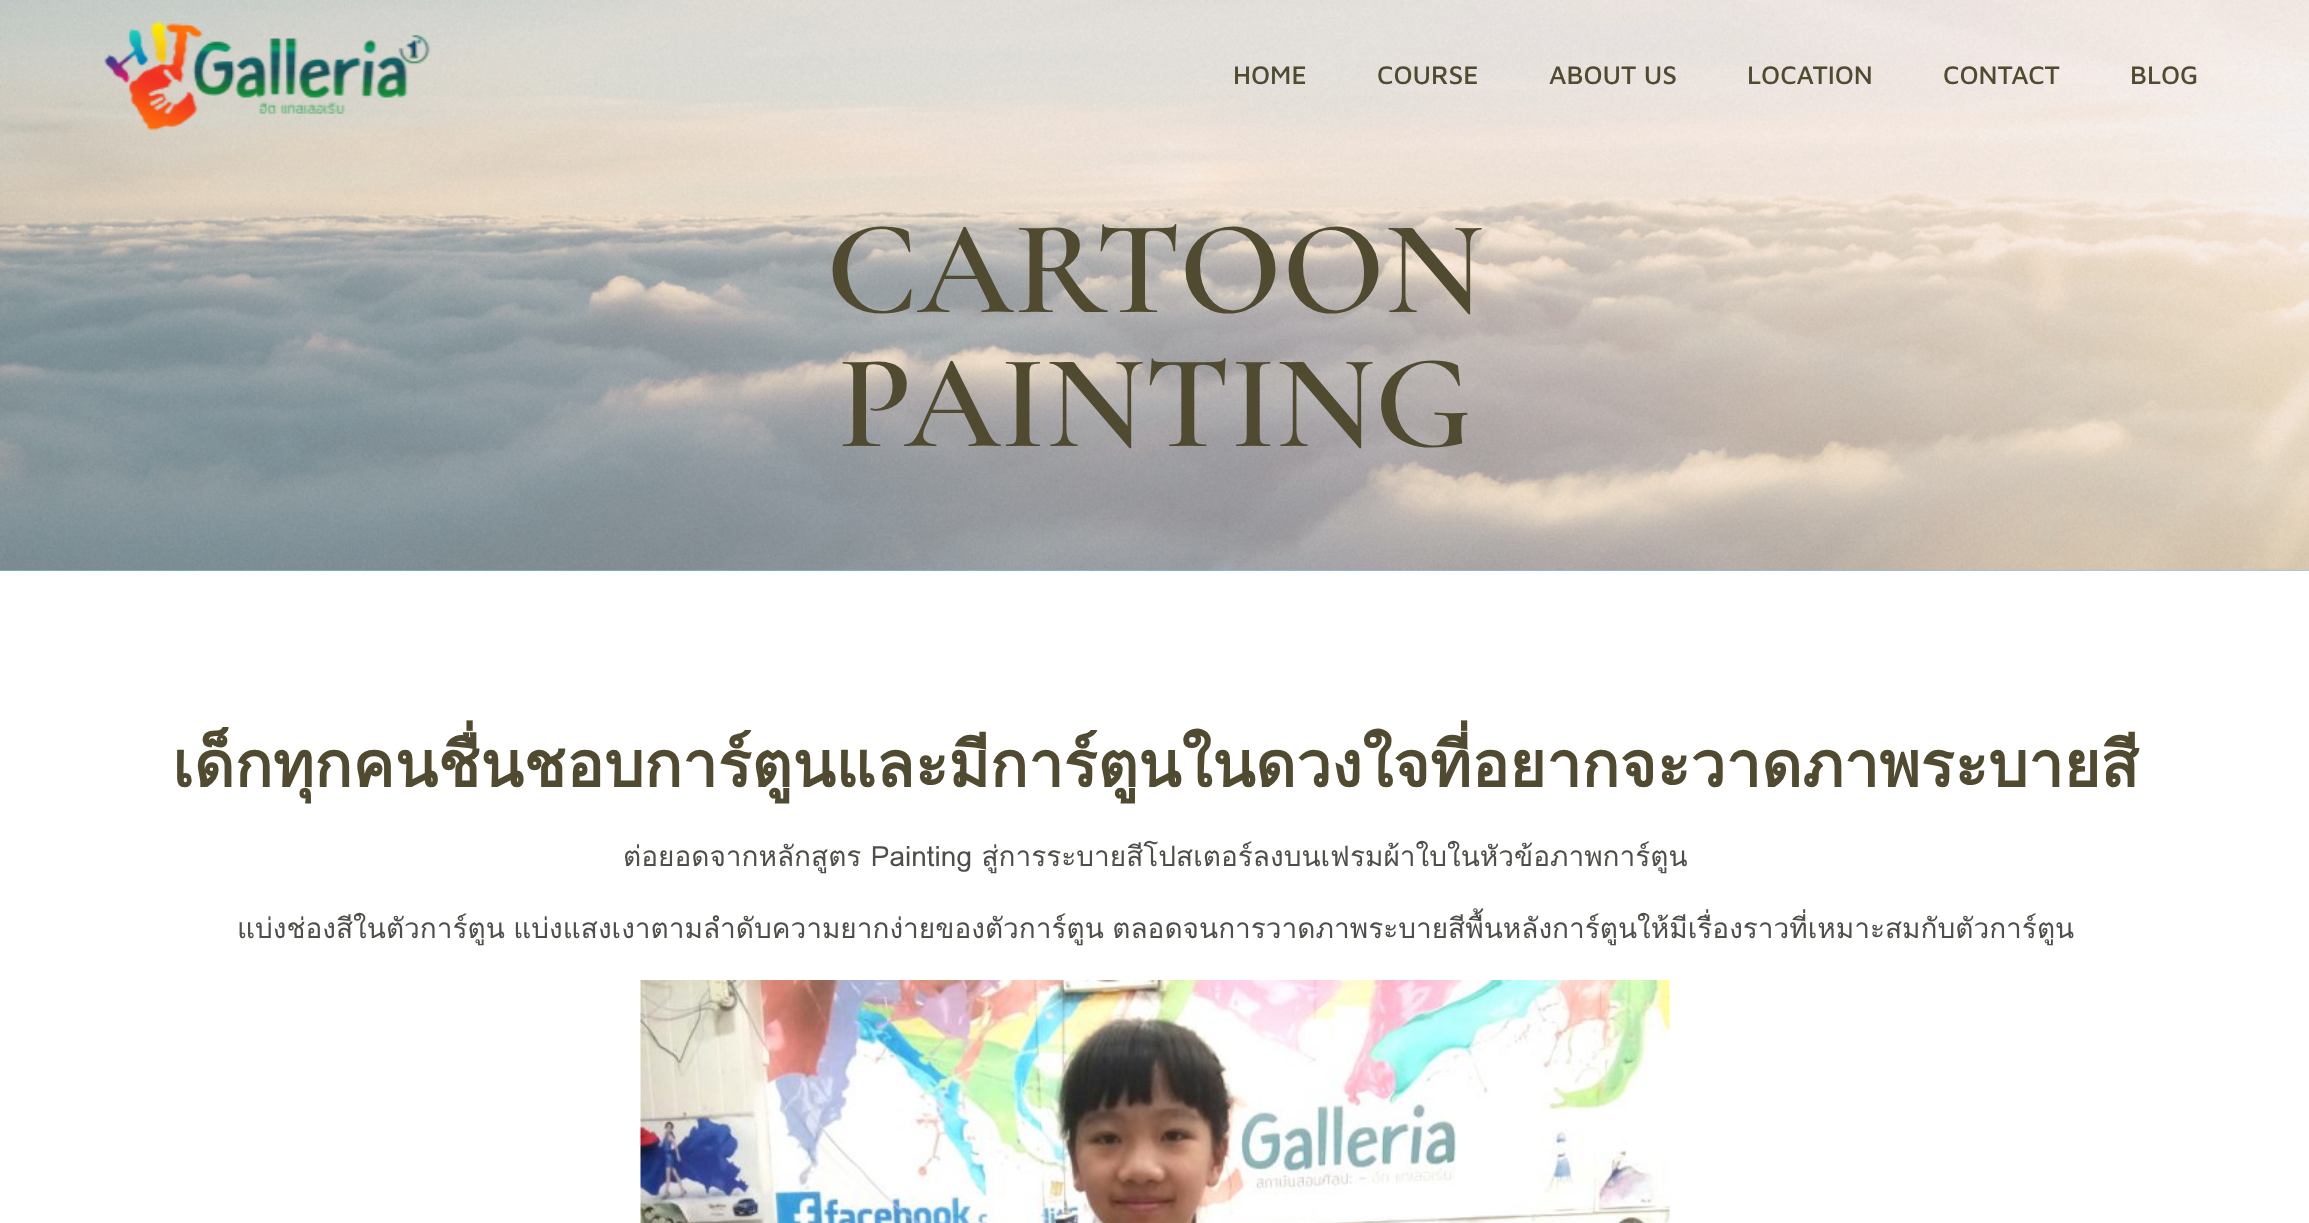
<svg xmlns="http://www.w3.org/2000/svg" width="2309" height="1223">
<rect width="100%" height="100%" fill="#fff"/>
<rect y="570" width="2309" height="1" fill="#7acdf1"/>
<image x="0" y="0" width="2309" height="571" href="media/2.png"/>
<image x="104" y="21" width="327" height="110" href="media/1.png"/>
<text x="1233" y="84" style="font-family:Maven Pro;font-size:26.25px;font-weight:500;fill:#4f4a30">HOME</text>
<text x="1377" y="84" style="font-family:Maven Pro;font-size:26.25px;font-weight:500;fill:#4f4a30">COURSE</text>
<text x="1549" y="84" style="font-family:Maven Pro;font-size:26.25px;font-weight:500;fill:#4f4a30">ABOUT US</text>
<text x="1747" y="84" style="font-family:Maven Pro;font-size:26.25px;font-weight:500;fill:#4f4a30">LOCATION</text>
<text x="1943" y="84" style="font-family:Maven Pro;font-size:26.25px;font-weight:500;fill:#4f4a30">CONTACT</text>
<text x="2130" y="84" style="font-family:Maven Pro;font-size:26.25px;font-weight:500;fill:#4f4a30">BLOG</text>
<text x="826" y="312" style="font-family:Cormorant Garamond;font-size:134.5px;font-weight:600;fill:#4f4a30">CARTOON</text>
<text x="838" y="446" style="font-family:Cormorant Garamond;font-size:134.5px;font-weight:600;fill:#4f4a30">PAINTING</text>
<text x="172" y="787" style="font-family:Loma;font-size:63px;font-weight:bold;fill:#4f4a30">เด็กทุกคนชื่นชอบการ์ตูนและมีการ์ตูนในดวงใจที่อยากจะวาดภาพระบายสี</text>
<text x="623" y="866" style="font-family:Loma;font-size:28px;fill:#4f4e4a">ต่อยอดจากหลักสูตร Painting สู่การระบายสีโปสเตอร์ลงบนเฟรมผ้าใบในหัวข้อภาพการ์ตูน</text>
<text x="237" y="938" word-spacing="-1" style="font-family:Loma;font-size:28px;fill:#4f4e4a">แบ่งช่องสีในตัวการ์ตูน แบ่งแสงเงาตามลำดับความยากง่ายของตัวการ์ตูน ตลอดจนการวาดภาพระบายสีพื้นหลังการ์ตูนให้มีเรื่องราวที่เหมาะสมกับตัวการ์ตูน</text>
<image x="640" y="980" width="1030" height="243" href="media/3.png"/>
</svg>
